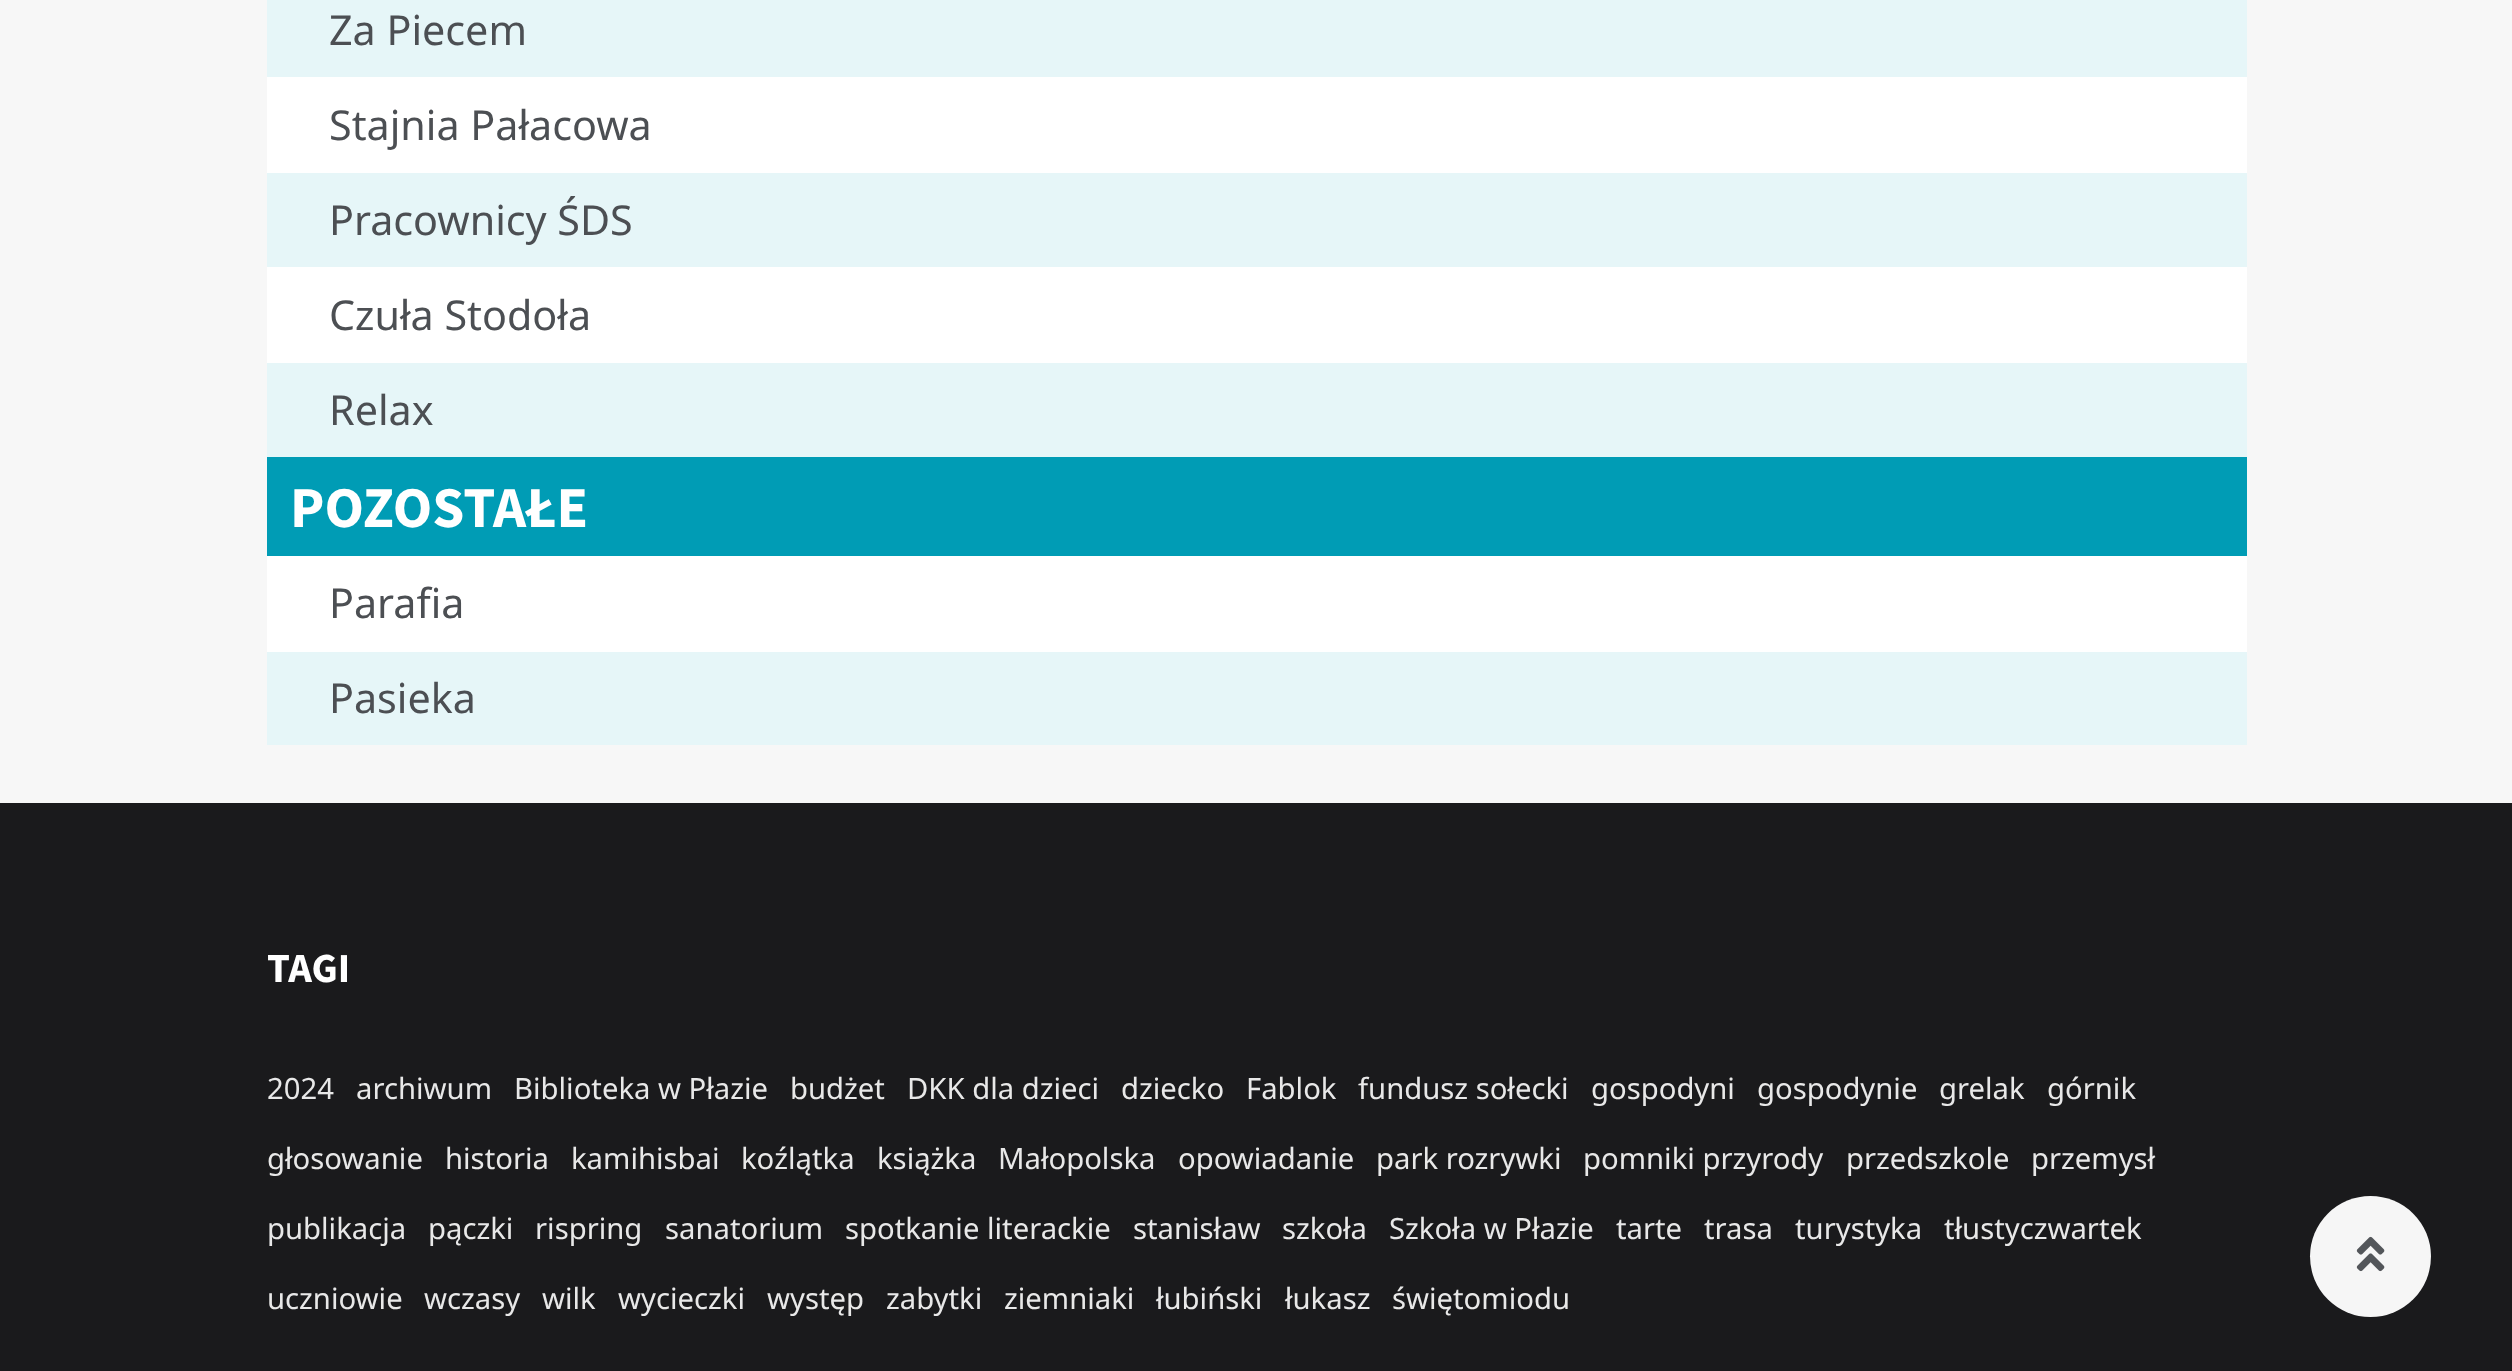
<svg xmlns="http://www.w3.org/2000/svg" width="2512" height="1371">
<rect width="100%" height="100%" fill="#f7f7f7"/>
<rect x="267" y="77" width="1980" height="286" fill="#fff"/>
<rect x="267" width="1980" height="77" fill="#e6f6f8"/>
<text x="329" y="45" style="font-family:Noto Sans;font-size:41.25px;fill:#4c4f53">Za Piecem</text>
<text x="329" y="140" style="font-family:Noto Sans;font-size:41.25px;fill:#4c4f53">Stajnia Pałacowa</text>
<rect x="267" y="173" width="1980" height="94" fill="#e6f6f8"/>
<text x="329" y="235" style="font-family:Noto Sans;font-size:41.25px;fill:#4c4f53">Pracownicy ŚDS</text>
<text x="329" y="330" style="font-family:Noto Sans;font-size:41.25px;fill:#4c4f53">Czuła Stodoła</text>
<rect x="267" y="363" width="1980" height="94" fill="#e6f6f8"/>
<text x="329" y="425" style="font-family:Noto Sans;font-size:41.25px;fill:#4c4f53">Relax</text>
<rect x="267" y="556" width="1980" height="96" fill="#fff"/>
<rect x="267" y="457" width="1980" height="99" fill="#009cb5"/>
<text x="290" y="527" style="font-family:Source Sans Pro;font-size:57.75px;font-weight:bold;fill:#fff">POZOSTAŁE</text>
<text x="329" y="618" style="font-family:Noto Sans;font-size:41.25px;fill:#4c4f53">Parafia</text>
<rect x="267" y="652" width="1980" height="93" fill="#e6f6f8"/>
<text x="329" y="713" style="font-family:Noto Sans;font-size:41.25px;fill:#4c4f53">Pasieka</text>
<rect y="803" width="2512" height="568" fill="#1a1a1c"/>
<text x="267" y="982" style="font-family:Source Sans Pro;font-size:41.25px;font-weight:bold;fill:#fff">TAGI</text>
<text x="267" y="1099" style="font-family:Noto Sans;font-size:29.25px;fill:#e8e8e8">2024</text>
<text x="356" y="1099" style="font-family:Noto Sans;font-size:29.25px;fill:#e8e8e8">archiwum</text>
<text x="514" y="1099" style="font-family:Noto Sans;font-size:29.25px;fill:#e8e8e8">Biblioteka w Płazie</text>
<text x="790" y="1099" style="font-family:Noto Sans;font-size:29.25px;fill:#e8e8e8">budżet</text>
<text x="907" y="1099" style="font-family:Noto Sans;font-size:29.25px;fill:#e8e8e8">DKK dla dzieci</text>
<text x="1121" y="1099" style="font-family:Noto Sans;font-size:29.25px;fill:#e8e8e8">dziecko</text>
<text x="1246" y="1099" style="font-family:Noto Sans;font-size:29.25px;fill:#e8e8e8">Fablok</text>
<text x="1358" y="1099" style="font-family:Noto Sans;font-size:29.25px;fill:#e8e8e8">fundusz sołecki</text>
<text x="1591" y="1099" style="font-family:Noto Sans;font-size:29.25px;fill:#e8e8e8">gospodyni</text>
<text x="1757" y="1099" style="font-family:Noto Sans;font-size:29.25px;fill:#e8e8e8">gospodynie</text>
<text x="1939" y="1099" style="font-family:Noto Sans;font-size:29.25px;fill:#e8e8e8">grelak</text>
<text x="2047" y="1099" style="font-family:Noto Sans;font-size:29.25px;fill:#e8e8e8">górnik</text>
<text x="267" y="1169" style="font-family:Noto Sans;font-size:29.25px;fill:#e8e8e8">głosowanie</text>
<text x="445" y="1169" style="font-family:Noto Sans;font-size:29.25px;fill:#e8e8e8">historia</text>
<text x="571" y="1169" style="font-family:Noto Sans;font-size:29.25px;fill:#e8e8e8">kamihisbai</text>
<text x="741" y="1169" style="font-family:Noto Sans;font-size:29.25px;fill:#e8e8e8">koźlątka</text>
<text x="877" y="1169" style="font-family:Noto Sans;font-size:29.25px;fill:#e8e8e8">książka</text>
<text x="998" y="1169" style="font-family:Noto Sans;font-size:29.25px;fill:#e8e8e8">Małopolska</text>
<text x="1178" y="1169" style="font-family:Noto Sans;font-size:29.25px;fill:#e8e8e8">opowiadanie</text>
<text x="1376" y="1169" style="font-family:Noto Sans;font-size:29.25px;fill:#e8e8e8">park rozrywki</text>
<text x="1583" y="1169" style="font-family:Noto Sans;font-size:29.25px;fill:#e8e8e8">pomniki przyrody</text>
<text x="1846" y="1169" style="font-family:Noto Sans;font-size:29.25px;fill:#e8e8e8">przedszkole</text>
<text x="2031" y="1169" style="font-family:Noto Sans;font-size:29.25px;fill:#e8e8e8">przemysł</text>
<text x="267" y="1239" style="font-family:Noto Sans;font-size:29.25px;fill:#e8e8e8">publikacja</text>
<text x="428" y="1239" style="font-family:Noto Sans;font-size:29.25px;fill:#e8e8e8">pączki</text>
<text x="535" y="1239" style="font-family:Noto Sans;font-size:29.25px;fill:#e8e8e8">rispring</text>
<text x="665" y="1239" style="font-family:Noto Sans;font-size:29.25px;fill:#e8e8e8">sanatorium</text>
<text x="845" y="1239" style="font-family:Noto Sans;font-size:29.25px;fill:#e8e8e8">spotkanie literackie</text>
<text x="1133" y="1239" style="font-family:Noto Sans;font-size:29.25px;fill:#e8e8e8">stanisław</text>
<text x="1282" y="1239" style="font-family:Noto Sans;font-size:29.25px;fill:#e8e8e8">szkoła</text>
<text x="1389" y="1239" style="font-family:Noto Sans;font-size:29.25px;fill:#e8e8e8">Szkoła w Płazie</text>
<text x="1616" y="1239" style="font-family:Noto Sans;font-size:29.25px;fill:#e8e8e8">tarte</text>
<text x="1704" y="1239" style="font-family:Noto Sans;font-size:29.25px;fill:#e8e8e8">trasa</text>
<text x="1795" y="1239" style="font-family:Noto Sans;font-size:29.25px;fill:#e8e8e8">turystyka</text>
<text x="1944" y="1239" style="font-family:Noto Sans;font-size:29.25px;fill:#e8e8e8">tłustyczwartek</text>
<text x="267" y="1309" style="font-family:Noto Sans;font-size:29.25px;fill:#e8e8e8">uczniowie</text>
<text x="424" y="1309" style="font-family:Noto Sans;font-size:29.25px;fill:#e8e8e8">wczasy</text>
<text x="542" y="1309" style="font-family:Noto Sans;font-size:29.25px;fill:#e8e8e8">wilk</text>
<text x="618" y="1309" style="font-family:Noto Sans;font-size:29.25px;fill:#e8e8e8">wycieczki</text>
<text x="767" y="1309" style="font-family:Noto Sans;font-size:29.25px;fill:#e8e8e8">występ</text>
<text x="886" y="1309" style="font-family:Noto Sans;font-size:29.25px;fill:#e8e8e8">zabytki</text>
<text x="1004" y="1309" style="font-family:Noto Sans;font-size:29.25px;fill:#e8e8e8">ziemniaki</text>
<text x="1156" y="1309" style="font-family:Noto Sans;font-size:29.25px;fill:#e8e8e8">łubiński</text>
<text x="1285" y="1309" style="font-family:Noto Sans;font-size:29.25px;fill:#e8e8e8">łukasz</text>
<text x="1392" y="1309" style="font-family:Noto Sans;font-size:29.25px;fill:#e8e8e8">świętomiodu</text>
<circle cx="2370.5" cy="1256.5" r="60.5" fill="#f6f6f6"/>
<image x="2356" y="1236" width="29" height="36" href="media/1.png"/>
</svg>
